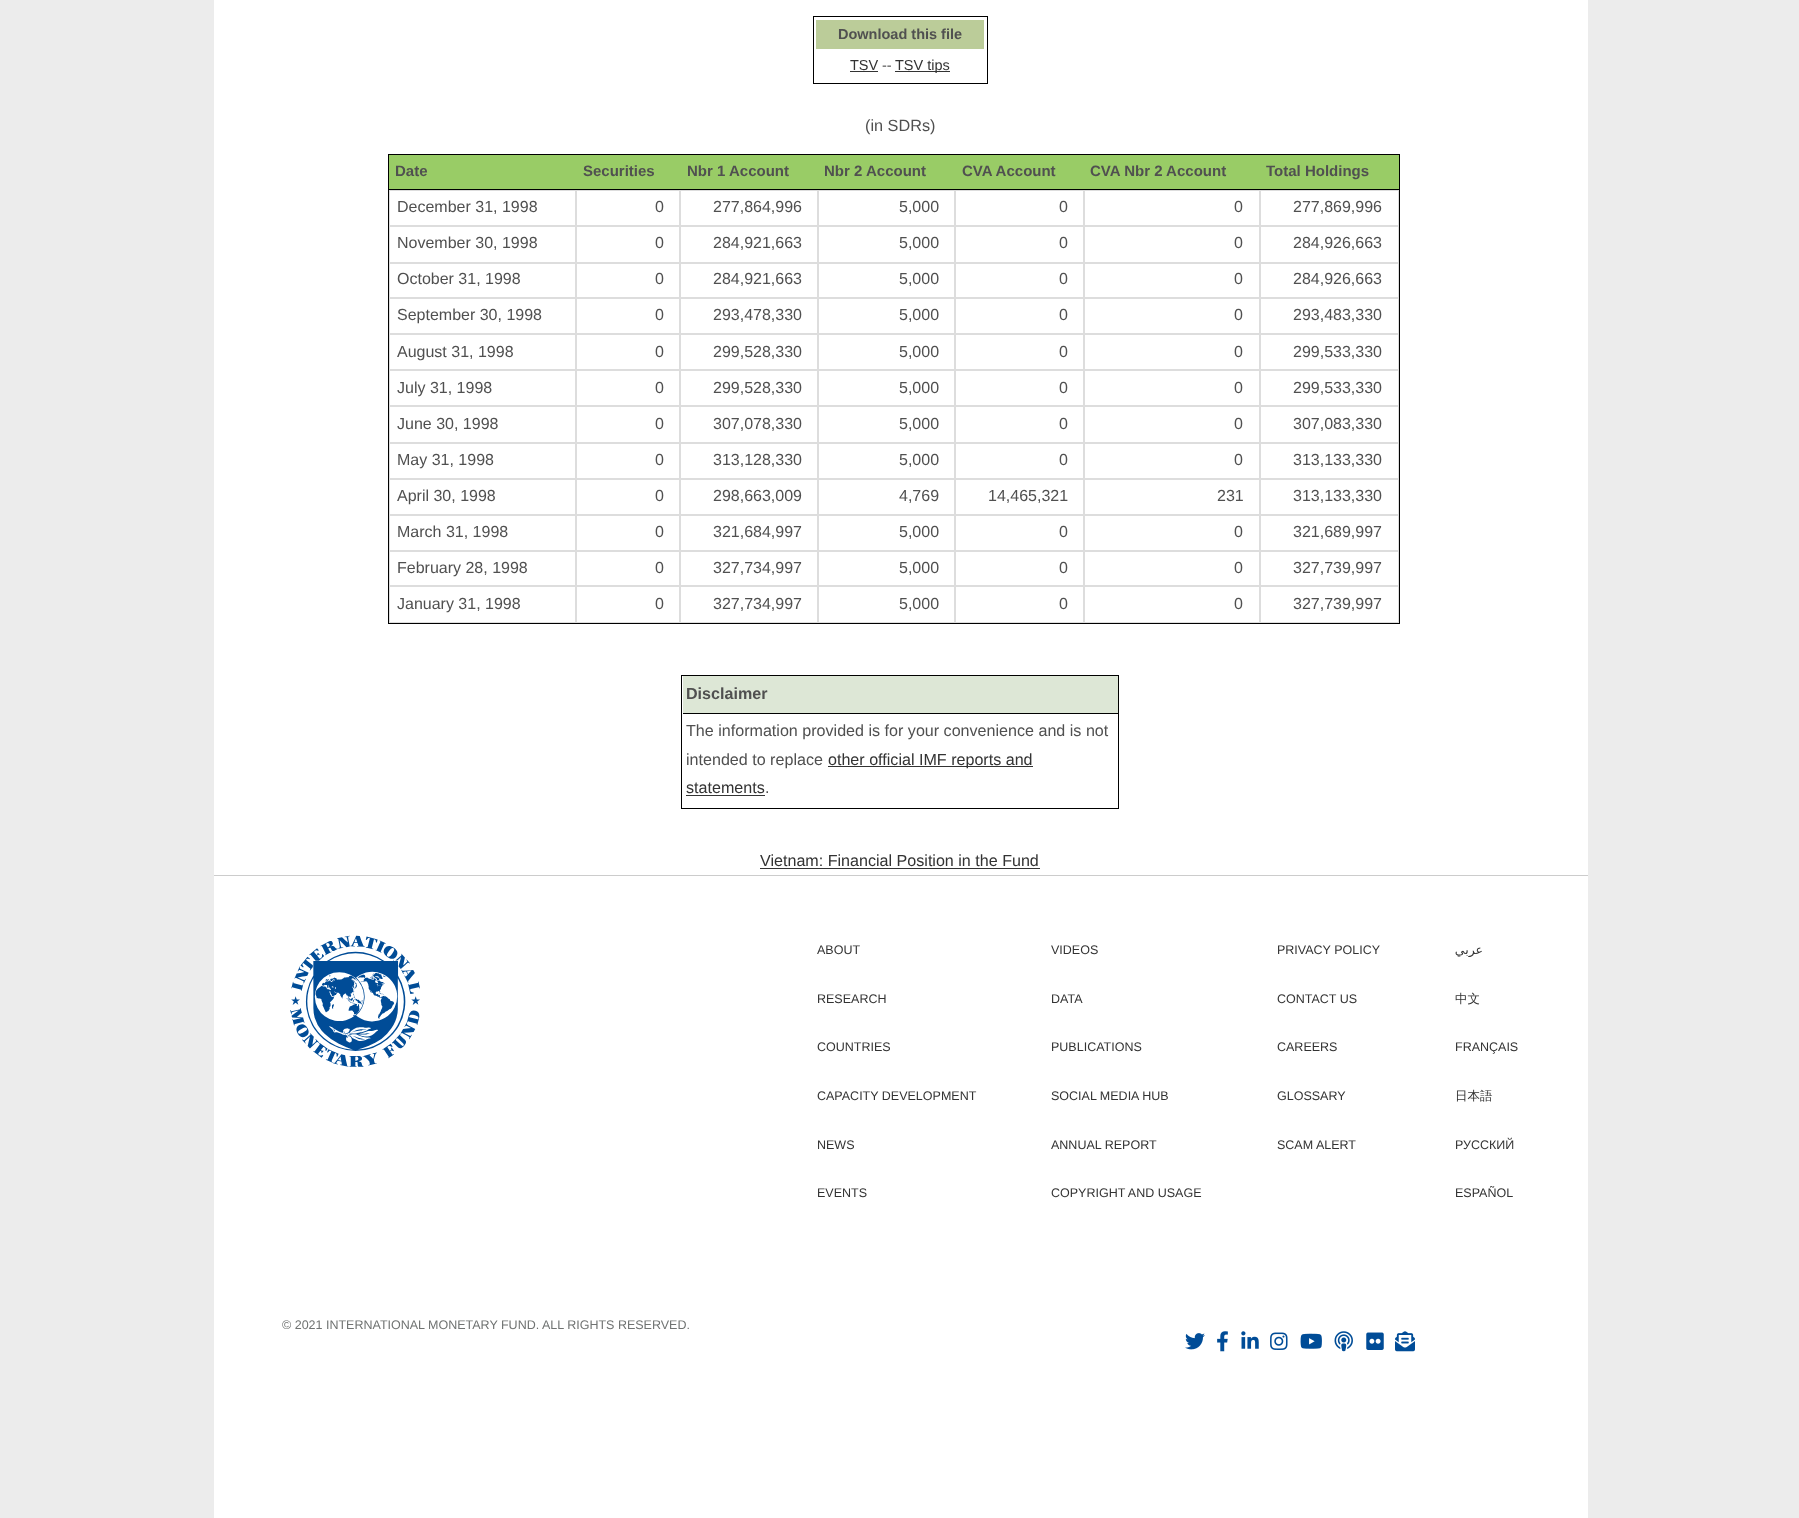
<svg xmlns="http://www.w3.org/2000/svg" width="1799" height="1518">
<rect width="100%" height="100%" fill="#ececec"/>
<rect x="214" width="1374" height="875" fill="#fff"/>
<rect x="813.5" y="16.5" width="174" height="67" fill="none" stroke="#000"/>
<rect x="816" y="20" width="168" height="29" fill="#bc9"/>
<text x="838" y="39" style="font-family:Liberation Sans;font-size:14.5px;font-weight:bold;fill:#505050">Download this file</text>
<text x="850" y="70" style="font-family:Liberation Sans;font-size:14.5px;fill:#333">TSV</text>
<rect x="850" y="71" width="28" height="1" fill="#333"/>
<text x="882" y="70" style="font-family:Liberation Sans;font-size:14.5px;fill:#505050">--</text>
<rect x="895" y="71" width="55" height="1" fill="#333"/>
<text x="895" y="70" style="font-family:Liberation Sans;font-size:14.5px;fill:#333">TSV tips</text>
<text x="865" y="131" style="font-family:Liberation Sans;font-size:16.25px;fill:#505050">(in SDRs)</text>
<rect x="388.5" y="154.5" width="1011" height="469" fill="none" stroke="#000"/>
<rect x="389" y="155" width="1010" height="34" fill="#9c6"/>
<rect x="389" y="189" width="1010" height="1" fill="#000"/>
<text x="395" y="176" style="font-family:Liberation Sans;font-size:15px;font-weight:bold;fill:#505050">Date</text>
<text x="583" y="176" style="font-family:Liberation Sans;font-size:15px;font-weight:bold;fill:#505050">Securities</text>
<text x="687" y="176" style="font-family:Liberation Sans;font-size:15px;font-weight:bold;fill:#505050">Nbr 1 Account</text>
<text x="824" y="176" style="font-family:Liberation Sans;font-size:15px;font-weight:bold;fill:#505050">Nbr 2 Account</text>
<text x="962" y="176" style="font-family:Liberation Sans;font-size:15px;font-weight:bold;fill:#505050">CVA Account</text>
<text x="1090" y="176" style="font-family:Liberation Sans;font-size:15px;font-weight:bold;fill:#505050">CVA Nbr 2 Account</text>
<text x="1266" y="176" style="font-family:Liberation Sans;font-size:15px;font-weight:bold;fill:#505050">Total Holdings</text>
<rect x="389.5" y="190.5" width="186" height="35" fill="none" stroke="#ddd"/>
<text x="397" y="212" style="font-family:Liberation Sans;font-size:16px;fill:#505050">December 31, 1998</text>
<rect x="576.5" y="190.5" width="103" height="35" fill="none" stroke="#ddd"/>
<text x="655" y="212" style="font-family:Liberation Sans;font-size:16px;fill:#505050">0</text>
<rect x="680.5" y="190.5" width="137" height="35" fill="none" stroke="#ddd"/>
<text x="713" y="212" style="font-family:Liberation Sans;font-size:16px;fill:#505050">277,864,996</text>
<rect x="818.5" y="190.5" width="136" height="35" fill="none" stroke="#ddd"/>
<text x="899" y="212" style="font-family:Liberation Sans;font-size:16px;fill:#505050">5,000</text>
<rect x="955.5" y="190.5" width="128" height="35" fill="none" stroke="#ddd"/>
<text x="1059" y="212" style="font-family:Liberation Sans;font-size:16px;fill:#505050">0</text>
<rect x="1084.5" y="190.5" width="175" height="35" fill="none" stroke="#ddd"/>
<text x="1234" y="212" style="font-family:Liberation Sans;font-size:16px;fill:#505050">0</text>
<rect x="1260.5" y="190.5" width="138" height="35" fill="none" stroke="#ddd"/>
<text x="1293" y="212" style="font-family:Liberation Sans;font-size:16px;fill:#505050">277,869,996</text>
<rect x="389.5" y="226.5" width="186" height="36" fill="none" stroke="#ddd"/>
<text x="397" y="248" style="font-family:Liberation Sans;font-size:16px;fill:#505050">November 30, 1998</text>
<rect x="576.5" y="226.5" width="103" height="36" fill="none" stroke="#ddd"/>
<text x="655" y="248" style="font-family:Liberation Sans;font-size:16px;fill:#505050">0</text>
<rect x="680.5" y="226.5" width="137" height="36" fill="none" stroke="#ddd"/>
<text x="713" y="248" style="font-family:Liberation Sans;font-size:16px;fill:#505050">284,921,663</text>
<rect x="818.5" y="226.5" width="136" height="36" fill="none" stroke="#ddd"/>
<text x="899" y="248" style="font-family:Liberation Sans;font-size:16px;fill:#505050">5,000</text>
<rect x="955.5" y="226.5" width="128" height="36" fill="none" stroke="#ddd"/>
<text x="1059" y="248" style="font-family:Liberation Sans;font-size:16px;fill:#505050">0</text>
<rect x="1084.5" y="226.5" width="175" height="36" fill="none" stroke="#ddd"/>
<text x="1234" y="248" style="font-family:Liberation Sans;font-size:16px;fill:#505050">0</text>
<rect x="1260.5" y="226.5" width="138" height="36" fill="none" stroke="#ddd"/>
<text x="1293" y="248" style="font-family:Liberation Sans;font-size:16px;fill:#505050">284,926,663</text>
<rect x="389.5" y="263.5" width="186" height="34" fill="none" stroke="#ddd"/>
<text x="397" y="284" style="font-family:Liberation Sans;font-size:16px;fill:#505050">October 31, 1998</text>
<rect x="576.5" y="263.5" width="103" height="34" fill="none" stroke="#ddd"/>
<text x="655" y="284" style="font-family:Liberation Sans;font-size:16px;fill:#505050">0</text>
<rect x="680.5" y="263.5" width="137" height="34" fill="none" stroke="#ddd"/>
<text x="713" y="284" style="font-family:Liberation Sans;font-size:16px;fill:#505050">284,921,663</text>
<rect x="818.5" y="263.5" width="136" height="34" fill="none" stroke="#ddd"/>
<text x="899" y="284" style="font-family:Liberation Sans;font-size:16px;fill:#505050">5,000</text>
<rect x="955.5" y="263.5" width="128" height="34" fill="none" stroke="#ddd"/>
<text x="1059" y="284" style="font-family:Liberation Sans;font-size:16px;fill:#505050">0</text>
<rect x="1084.5" y="263.5" width="175" height="34" fill="none" stroke="#ddd"/>
<text x="1234" y="284" style="font-family:Liberation Sans;font-size:16px;fill:#505050">0</text>
<rect x="1260.5" y="263.5" width="138" height="34" fill="none" stroke="#ddd"/>
<text x="1293" y="284" style="font-family:Liberation Sans;font-size:16px;fill:#505050">284,926,663</text>
<rect x="389.5" y="298.5" width="186" height="35" fill="none" stroke="#ddd"/>
<text x="397" y="320" style="font-family:Liberation Sans;font-size:16px;fill:#505050">September 30, 1998</text>
<rect x="576.5" y="298.5" width="103" height="35" fill="none" stroke="#ddd"/>
<text x="655" y="320" style="font-family:Liberation Sans;font-size:16px;fill:#505050">0</text>
<rect x="680.5" y="298.5" width="137" height="35" fill="none" stroke="#ddd"/>
<text x="713" y="320" style="font-family:Liberation Sans;font-size:16px;fill:#505050">293,478,330</text>
<rect x="818.5" y="298.5" width="136" height="35" fill="none" stroke="#ddd"/>
<text x="899" y="320" style="font-family:Liberation Sans;font-size:16px;fill:#505050">5,000</text>
<rect x="955.5" y="298.5" width="128" height="35" fill="none" stroke="#ddd"/>
<text x="1059" y="320" style="font-family:Liberation Sans;font-size:16px;fill:#505050">0</text>
<rect x="1084.5" y="298.5" width="175" height="35" fill="none" stroke="#ddd"/>
<text x="1234" y="320" style="font-family:Liberation Sans;font-size:16px;fill:#505050">0</text>
<rect x="1260.5" y="298.5" width="138" height="35" fill="none" stroke="#ddd"/>
<text x="1293" y="320" style="font-family:Liberation Sans;font-size:16px;fill:#505050">293,483,330</text>
<rect x="389.5" y="334.5" width="186" height="35" fill="none" stroke="#ddd"/>
<text x="397" y="357" style="font-family:Liberation Sans;font-size:16px;fill:#505050">August 31, 1998</text>
<rect x="576.5" y="334.5" width="103" height="35" fill="none" stroke="#ddd"/>
<text x="655" y="357" style="font-family:Liberation Sans;font-size:16px;fill:#505050">0</text>
<rect x="680.5" y="334.5" width="137" height="35" fill="none" stroke="#ddd"/>
<text x="713" y="357" style="font-family:Liberation Sans;font-size:16px;fill:#505050">299,528,330</text>
<rect x="818.5" y="334.5" width="136" height="35" fill="none" stroke="#ddd"/>
<text x="899" y="357" style="font-family:Liberation Sans;font-size:16px;fill:#505050">5,000</text>
<rect x="955.5" y="334.5" width="128" height="35" fill="none" stroke="#ddd"/>
<text x="1059" y="357" style="font-family:Liberation Sans;font-size:16px;fill:#505050">0</text>
<rect x="1084.5" y="334.5" width="175" height="35" fill="none" stroke="#ddd"/>
<text x="1234" y="357" style="font-family:Liberation Sans;font-size:16px;fill:#505050">0</text>
<rect x="1260.5" y="334.5" width="138" height="35" fill="none" stroke="#ddd"/>
<text x="1293" y="357" style="font-family:Liberation Sans;font-size:16px;fill:#505050">299,533,330</text>
<rect x="389.5" y="370.5" width="186" height="35" fill="none" stroke="#ddd"/>
<text x="397" y="393" style="font-family:Liberation Sans;font-size:16px;fill:#505050">July 31, 1998</text>
<rect x="576.5" y="370.5" width="103" height="35" fill="none" stroke="#ddd"/>
<text x="655" y="393" style="font-family:Liberation Sans;font-size:16px;fill:#505050">0</text>
<rect x="680.5" y="370.5" width="137" height="35" fill="none" stroke="#ddd"/>
<text x="713" y="393" style="font-family:Liberation Sans;font-size:16px;fill:#505050">299,528,330</text>
<rect x="818.5" y="370.5" width="136" height="35" fill="none" stroke="#ddd"/>
<text x="899" y="393" style="font-family:Liberation Sans;font-size:16px;fill:#505050">5,000</text>
<rect x="955.5" y="370.5" width="128" height="35" fill="none" stroke="#ddd"/>
<text x="1059" y="393" style="font-family:Liberation Sans;font-size:16px;fill:#505050">0</text>
<rect x="1084.5" y="370.5" width="175" height="35" fill="none" stroke="#ddd"/>
<text x="1234" y="393" style="font-family:Liberation Sans;font-size:16px;fill:#505050">0</text>
<rect x="1260.5" y="370.5" width="138" height="35" fill="none" stroke="#ddd"/>
<text x="1293" y="393" style="font-family:Liberation Sans;font-size:16px;fill:#505050">299,533,330</text>
<rect x="389.5" y="406.5" width="186" height="36" fill="none" stroke="#ddd"/>
<text x="397" y="429" style="font-family:Liberation Sans;font-size:16px;fill:#505050">June 30, 1998</text>
<rect x="576.5" y="406.5" width="103" height="36" fill="none" stroke="#ddd"/>
<text x="655" y="429" style="font-family:Liberation Sans;font-size:16px;fill:#505050">0</text>
<rect x="680.5" y="406.5" width="137" height="36" fill="none" stroke="#ddd"/>
<text x="713" y="429" style="font-family:Liberation Sans;font-size:16px;fill:#505050">307,078,330</text>
<rect x="818.5" y="406.5" width="136" height="36" fill="none" stroke="#ddd"/>
<text x="899" y="429" style="font-family:Liberation Sans;font-size:16px;fill:#505050">5,000</text>
<rect x="955.5" y="406.5" width="128" height="36" fill="none" stroke="#ddd"/>
<text x="1059" y="429" style="font-family:Liberation Sans;font-size:16px;fill:#505050">0</text>
<rect x="1084.5" y="406.5" width="175" height="36" fill="none" stroke="#ddd"/>
<text x="1234" y="429" style="font-family:Liberation Sans;font-size:16px;fill:#505050">0</text>
<rect x="1260.5" y="406.5" width="138" height="36" fill="none" stroke="#ddd"/>
<text x="1293" y="429" style="font-family:Liberation Sans;font-size:16px;fill:#505050">307,083,330</text>
<rect x="389.5" y="443.5" width="186" height="35" fill="none" stroke="#ddd"/>
<text x="397" y="465" style="font-family:Liberation Sans;font-size:16px;fill:#505050">May 31, 1998</text>
<rect x="576.5" y="443.5" width="103" height="35" fill="none" stroke="#ddd"/>
<text x="655" y="465" style="font-family:Liberation Sans;font-size:16px;fill:#505050">0</text>
<rect x="680.5" y="443.5" width="137" height="35" fill="none" stroke="#ddd"/>
<text x="713" y="465" style="font-family:Liberation Sans;font-size:16px;fill:#505050">313,128,330</text>
<rect x="818.5" y="443.5" width="136" height="35" fill="none" stroke="#ddd"/>
<text x="899" y="465" style="font-family:Liberation Sans;font-size:16px;fill:#505050">5,000</text>
<rect x="955.5" y="443.5" width="128" height="35" fill="none" stroke="#ddd"/>
<text x="1059" y="465" style="font-family:Liberation Sans;font-size:16px;fill:#505050">0</text>
<rect x="1084.5" y="443.5" width="175" height="35" fill="none" stroke="#ddd"/>
<text x="1234" y="465" style="font-family:Liberation Sans;font-size:16px;fill:#505050">0</text>
<rect x="1260.5" y="443.5" width="138" height="35" fill="none" stroke="#ddd"/>
<text x="1293" y="465" style="font-family:Liberation Sans;font-size:16px;fill:#505050">313,133,330</text>
<rect x="389.5" y="479.5" width="186" height="35" fill="none" stroke="#ddd"/>
<text x="397" y="501" style="font-family:Liberation Sans;font-size:16px;fill:#505050">April 30, 1998</text>
<rect x="576.5" y="479.5" width="103" height="35" fill="none" stroke="#ddd"/>
<text x="655" y="501" style="font-family:Liberation Sans;font-size:16px;fill:#505050">0</text>
<rect x="680.5" y="479.5" width="137" height="35" fill="none" stroke="#ddd"/>
<text x="713" y="501" style="font-family:Liberation Sans;font-size:16px;fill:#505050">298,663,009</text>
<rect x="818.5" y="479.5" width="136" height="35" fill="none" stroke="#ddd"/>
<text x="899" y="501" style="font-family:Liberation Sans;font-size:16px;fill:#505050">4,769</text>
<rect x="955.5" y="479.5" width="128" height="35" fill="none" stroke="#ddd"/>
<text x="988" y="501" style="font-family:Liberation Sans;font-size:16px;fill:#505050">14,465,321</text>
<rect x="1084.5" y="479.5" width="175" height="35" fill="none" stroke="#ddd"/>
<text x="1217" y="501" style="font-family:Liberation Sans;font-size:16px;fill:#505050">231</text>
<rect x="1260.5" y="479.5" width="138" height="35" fill="none" stroke="#ddd"/>
<text x="1293" y="501" style="font-family:Liberation Sans;font-size:16px;fill:#505050">313,133,330</text>
<rect x="389.5" y="515.5" width="186" height="35" fill="none" stroke="#ddd"/>
<text x="397" y="537" style="font-family:Liberation Sans;font-size:16px;fill:#505050">March 31, 1998</text>
<rect x="576.5" y="515.5" width="103" height="35" fill="none" stroke="#ddd"/>
<text x="655" y="537" style="font-family:Liberation Sans;font-size:16px;fill:#505050">0</text>
<rect x="680.5" y="515.5" width="137" height="35" fill="none" stroke="#ddd"/>
<text x="713" y="537" style="font-family:Liberation Sans;font-size:16px;fill:#505050">321,684,997</text>
<rect x="818.5" y="515.5" width="136" height="35" fill="none" stroke="#ddd"/>
<text x="899" y="537" style="font-family:Liberation Sans;font-size:16px;fill:#505050">5,000</text>
<rect x="955.5" y="515.5" width="128" height="35" fill="none" stroke="#ddd"/>
<text x="1059" y="537" style="font-family:Liberation Sans;font-size:16px;fill:#505050">0</text>
<rect x="1084.5" y="515.5" width="175" height="35" fill="none" stroke="#ddd"/>
<text x="1234" y="537" style="font-family:Liberation Sans;font-size:16px;fill:#505050">0</text>
<rect x="1260.5" y="515.5" width="138" height="35" fill="none" stroke="#ddd"/>
<text x="1293" y="537" style="font-family:Liberation Sans;font-size:16px;fill:#505050">321,689,997</text>
<rect x="389.5" y="551.5" width="186" height="34" fill="none" stroke="#ddd"/>
<text x="397" y="573" style="font-family:Liberation Sans;font-size:16px;fill:#505050">February 28, 1998</text>
<rect x="576.5" y="551.5" width="103" height="34" fill="none" stroke="#ddd"/>
<text x="655" y="573" style="font-family:Liberation Sans;font-size:16px;fill:#505050">0</text>
<rect x="680.5" y="551.5" width="137" height="34" fill="none" stroke="#ddd"/>
<text x="713" y="573" style="font-family:Liberation Sans;font-size:16px;fill:#505050">327,734,997</text>
<rect x="818.5" y="551.5" width="136" height="34" fill="none" stroke="#ddd"/>
<text x="899" y="573" style="font-family:Liberation Sans;font-size:16px;fill:#505050">5,000</text>
<rect x="955.5" y="551.5" width="128" height="34" fill="none" stroke="#ddd"/>
<text x="1059" y="573" style="font-family:Liberation Sans;font-size:16px;fill:#505050">0</text>
<rect x="1084.5" y="551.5" width="175" height="34" fill="none" stroke="#ddd"/>
<text x="1234" y="573" style="font-family:Liberation Sans;font-size:16px;fill:#505050">0</text>
<rect x="1260.5" y="551.5" width="138" height="34" fill="none" stroke="#ddd"/>
<text x="1293" y="573" style="font-family:Liberation Sans;font-size:16px;fill:#505050">327,739,997</text>
<rect x="389.5" y="586.5" width="186" height="36" fill="none" stroke="#ddd"/>
<text x="397" y="609" style="font-family:Liberation Sans;font-size:16px;fill:#505050">January 31, 1998</text>
<rect x="576.5" y="586.5" width="103" height="36" fill="none" stroke="#ddd"/>
<text x="655" y="609" style="font-family:Liberation Sans;font-size:16px;fill:#505050">0</text>
<rect x="680.5" y="586.5" width="137" height="36" fill="none" stroke="#ddd"/>
<text x="713" y="609" style="font-family:Liberation Sans;font-size:16px;fill:#505050">327,734,997</text>
<rect x="818.5" y="586.5" width="136" height="36" fill="none" stroke="#ddd"/>
<text x="899" y="609" style="font-family:Liberation Sans;font-size:16px;fill:#505050">5,000</text>
<rect x="955.5" y="586.5" width="128" height="36" fill="none" stroke="#ddd"/>
<text x="1059" y="609" style="font-family:Liberation Sans;font-size:16px;fill:#505050">0</text>
<rect x="1084.5" y="586.5" width="175" height="36" fill="none" stroke="#ddd"/>
<text x="1234" y="609" style="font-family:Liberation Sans;font-size:16px;fill:#505050">0</text>
<rect x="1260.5" y="586.5" width="138" height="36" fill="none" stroke="#ddd"/>
<text x="1293" y="609" style="font-family:Liberation Sans;font-size:16px;fill:#505050">327,739,997</text>
<rect x="681.5" y="675.5" width="437" height="133" fill="none" stroke="#000"/>
<rect x="683" y="676" width="435" height="37" fill="#dde7d6"/>
<rect x="683" y="713" width="435" height="1" fill="#000"/>
<text x="686" y="699" style="font-family:Liberation Sans;font-size:16.1px;font-weight:bold;fill:#505050">Disclaimer</text>
<text x="686" y="736" style="font-family:Liberation Sans;font-size:16.1px;fill:#505050">The information provided is for your convenience and is not</text>
<text x="686" y="765" style="font-family:Liberation Sans;font-size:16.1px;fill:#505050">intended to replace</text>
<rect x="828" y="766" width="205" height="1" fill="#333"/>
<text x="828" y="765" style="font-family:Liberation Sans;font-size:16.1px;fill:#333">other official IMF reports and</text>
<text x="686" y="793" style="font-family:Liberation Sans;font-size:16.1px;fill:#333">statements</text>
<rect x="686" y="795" width="79" height="1" fill="#333"/>
<text x="765" y="793" style="font-family:Liberation Sans;font-size:16.1px;fill:#505050">.</text>
<text x="760" y="866" style="font-family:Liberation Sans;font-size:16.1px;fill:#333">Vietnam: Financial Position in the Fund</text>
<rect x="760" y="868" width="280" height="1" fill="#333"/>
<rect x="214" y="876" width="1374" height="642" fill="#fff"/>
<rect x="214" y="875" width="1374" height="1" fill="#ccc"/>
<image x="290" y="935" width="130" height="132" href="media/1.png"/>
<text x="817" y="954" style="font-family:Liberation Sans;font-size:12.5px;fill:#333">ABOUT</text>
<text x="817" y="1003" style="font-family:Liberation Sans;font-size:12.5px;fill:#333">RESEARCH</text>
<text x="817" y="1051" style="font-family:Liberation Sans;font-size:12.5px;fill:#333">COUNTRIES</text>
<text x="817" y="1100" style="font-family:Liberation Sans;font-size:12.5px;fill:#333">CAPACITY DEVELOPMENT</text>
<text x="817" y="1149" style="font-family:Liberation Sans;font-size:12.5px;fill:#333">NEWS</text>
<text x="817" y="1197" style="font-family:Liberation Sans;font-size:12.5px;fill:#333">EVENTS</text>
<text x="1051" y="954" style="font-family:Liberation Sans;font-size:12.5px;fill:#333">VIDEOS</text>
<text x="1051" y="1003" style="font-family:Liberation Sans;font-size:12.5px;fill:#333">DATA</text>
<text x="1051" y="1051" style="font-family:Liberation Sans;font-size:12.5px;fill:#333">PUBLICATIONS</text>
<text x="1051" y="1100" style="font-family:Liberation Sans;font-size:12.5px;fill:#333">SOCIAL MEDIA HUB</text>
<text x="1051" y="1149" style="font-family:Liberation Sans;font-size:12.5px;fill:#333">ANNUAL REPORT</text>
<text x="1051" y="1197" style="font-family:Liberation Sans;font-size:12.5px;fill:#333">COPYRIGHT AND USAGE</text>
<text x="1277" y="954" style="font-family:Liberation Sans;font-size:12.5px;fill:#333">PRIVACY POLICY</text>
<text x="1277" y="1003" style="font-family:Liberation Sans;font-size:12.5px;fill:#333">CONTACT US</text>
<text x="1277" y="1051" style="font-family:Liberation Sans;font-size:12.5px;fill:#333">CAREERS</text>
<text x="1277" y="1100" style="font-family:Liberation Sans;font-size:12.5px;fill:#333">GLOSSARY</text>
<text x="1277" y="1149" style="font-family:Liberation Sans;font-size:12.5px;fill:#333">SCAM ALERT</text>
<text x="1483" y="954" style="font-family:DejaVu Sans;font-size:12.5px;direction:rtl;fill:#333">عربي</text>
<text x="1455" y="1003" style="font-family:WenQuanYi Zen Hei;font-size:12.5px;font-weight:500;fill:#333">中文</text>
<text x="1455" y="1051" style="font-family:Liberation Sans;font-size:12.5px;fill:#333">FRANÇAIS</text>
<text x="1455" y="1100" style="font-family:WenQuanYi Zen Hei;font-size:12.5px;font-weight:500;fill:#333">日本語</text>
<text x="1455" y="1149" style="font-family:Liberation Sans;font-size:12.5px;fill:#333">РУССКИЙ</text>
<text x="1455" y="1197" style="font-family:Liberation Sans;font-size:12.5px;fill:#333">ESPAÑOL</text>
<text x="282" y="1329" style="font-family:Liberation Sans;font-size:12.5px;fill:#707372">© 2021 INTERNATIONAL MONETARY FUND. ALL RIGHTS RESERVED.</text>
<image x="1185" y="1333" width="20" height="17" href="media/2.png"/>
<image x="1217" y="1331" width="11" height="21" href="media/3.png"/>
<image x="1241" y="1331" width="18" height="18" href="media/4.png"/>
<image x="1270" y="1332" width="18" height="18" href="media/5.png"/>
<image x="1300" y="1333" width="22" height="16" href="media/6.png"/>
<image x="1334" y="1331" width="19" height="21" href="media/7.png"/>
<image x="1366" y="1332" width="18" height="18" href="media/8.png"/>
<image x="1395" y="1331" width="20" height="21" href="media/9.png"/>
</svg>
